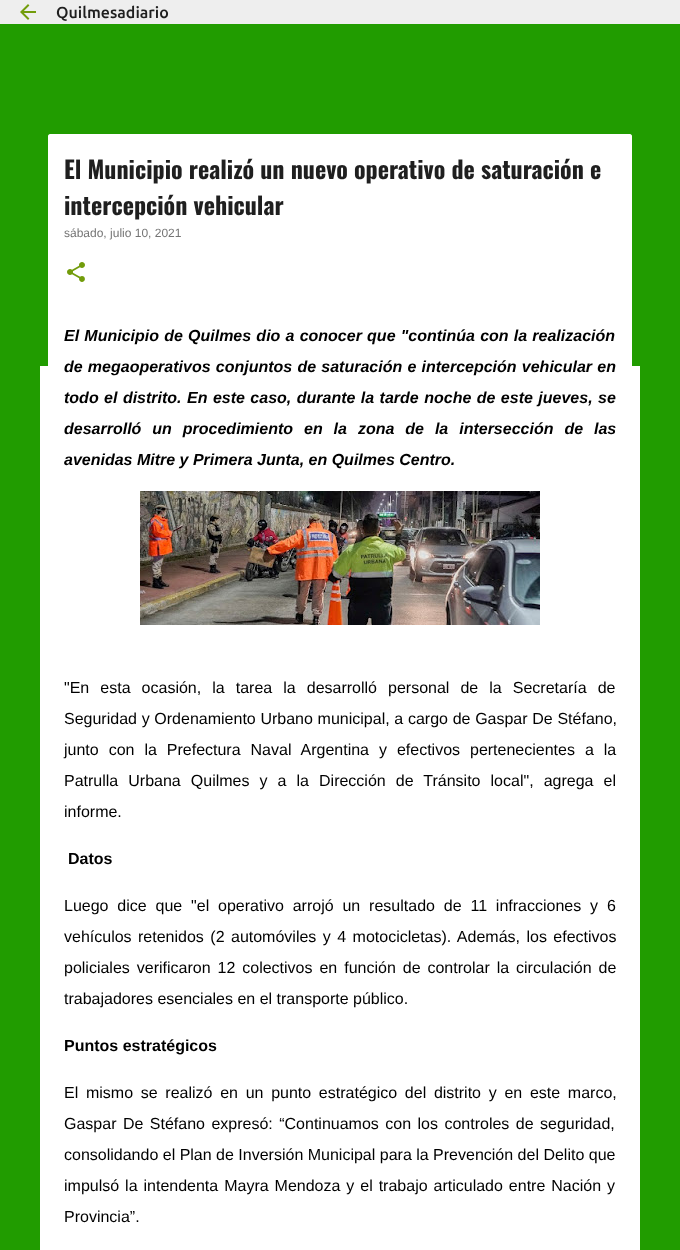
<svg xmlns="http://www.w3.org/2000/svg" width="680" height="1250">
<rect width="100%" height="100%" fill="#219c00"/>
<rect width="680" height="24" fill="#eee"/>
<image x="20" y="4" width="16" height="16" href="media/1.png"/>
<text x="56" y="18" style="font-family:Ubuntu;font-size:16px;font-weight:500;fill:#1f1f1f">Quilmesadiario</text>
<rect x="40" y="366" width="600" height="884" fill="#fff"/>
<path d="M50 134h580c1 0 2 1 2 2v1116h-584v-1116c0-1 1-2 2-2z" fill="#fff"/>
<text x="64" y="179" style="font-family:Oswald;font-size:24px;font-weight:bold;fill:#1f1f1f">El Municipio realizó un nuevo operativo de saturación e</text>
<text x="64" y="215" style="font-family:Oswald;font-size:24px;font-weight:bold;fill:#1f1f1f">intercepción vehicular</text>
<text x="64" y="237" style="font-family:Liberation Sans;font-size:12px;fill:#747474">sábado, julio 10, 2021</text>
<image x="67" y="262" width="18" height="20" href="media/2.png"/>
<text x="64" y="341" word-spacing="0.75" style="font-family:Liberation Sans;font-size:16px;font-weight:bold;font-style:italic;fill:#000">El Municipio de Quilmes dio a conocer que "continúa con la realización</text>
<text x="64" y="372" word-spacing="0.75" style="font-family:Liberation Sans;font-size:16px;font-weight:bold;font-style:italic;fill:#000">de megaoperativos conjuntos de saturación e intercepción vehicular en</text>
<text x="64" y="403" word-spacing="1" style="font-family:Liberation Sans;font-size:16px;font-weight:bold;font-style:italic;fill:#000">todo el distrito. En este caso, durante la tarde noche de este jueves, se</text>
<text x="64" y="434" word-spacing="6.5" style="font-family:Liberation Sans;font-size:16px;font-weight:bold;font-style:italic;fill:#000">desarrolló un procedimiento en la zona de la intersección de las</text>
<text x="64" y="465" style="font-family:Liberation Sans;font-size:16px;font-weight:bold;font-style:italic;fill:#000">avenidas Mitre y Primera Junta, en Quilmes Centro.</text>
<image x="140" y="491" width="400" height="134" href="media/3.png"/>
<text x="64" y="693" word-spacing="6.6" style="font-family:Liberation Sans;font-size:16px;fill:#000">"En esta ocasión, la tarea la desarrolló personal de la Secretaría de</text>
<text x="64" y="724" word-spacing="0.25" style="font-family:Liberation Sans;font-size:16px;fill:#000">Seguridad y Ordenamiento Urbano municipal, a cargo de Gaspar De Stéfano,</text>
<text x="64" y="755" word-spacing="5.5" style="font-family:Liberation Sans;font-size:16px;fill:#000">junto con la Prefectura Naval Argentina y efectivos pertenecientes a la</text>
<text x="64" y="786" word-spacing="5.6" style="font-family:Liberation Sans;font-size:16px;fill:#000">Patrulla Urbana Quilmes y a la Dirección de Tránsito local", agrega el</text>
<text x="64" y="817" style="font-family:Liberation Sans;font-size:16px;fill:#000">informe.</text>
<text x="68" y="864" style="font-family:Liberation Sans;font-size:16px;font-weight:bold;fill:#000">Datos</text>
<text x="64" y="911" word-spacing="4.4" style="font-family:Liberation Sans;font-size:16px;fill:#000">Luego dice que "el operativo arrojó un resultado de 11 infracciones y 6</text>
<text x="64" y="942" word-spacing="2" style="font-family:Liberation Sans;font-size:16px;fill:#000">vehículos retenidos (2 automóviles y 4 motocicletas). Además, los efectivos</text>
<text x="64" y="973" word-spacing="2.5" style="font-family:Liberation Sans;font-size:16px;fill:#000">policiales verificaron 12 colectivos en función de controlar la circulación de</text>
<text x="64" y="1004" style="font-family:Liberation Sans;font-size:16px;fill:#000">trabajadores esenciales en el transporte público.</text>
<text x="64" y="1051" style="font-family:Liberation Sans;font-size:16px;font-weight:bold;fill:#000">Puntos estratégicos</text>
<text x="64" y="1098" word-spacing="3.25" style="font-family:Liberation Sans;font-size:16px;fill:#000">El mismo se realizó en un punto estratégico del distrito y en este marco,</text>
<text x="64" y="1129" word-spacing="2" style="font-family:Liberation Sans;font-size:16px;fill:#000">Gaspar De Stéfano expresó: “Continuamos con los controles de seguridad,</text>
<text x="64" y="1160" style="font-family:Liberation Sans;font-size:16px;fill:#000">consolidando el Plan de Inversión Municipal para la Prevención del Delito que</text>
<text x="64" y="1191" word-spacing="1.5" style="font-family:Liberation Sans;font-size:16px;fill:#000">impulsó la intendenta Mayra Mendoza y el trabajo articulado entre Nación y</text>
<text x="64" y="1222" style="font-family:Liberation Sans;font-size:16px;fill:#000">Provincia”.</text>
</svg>
